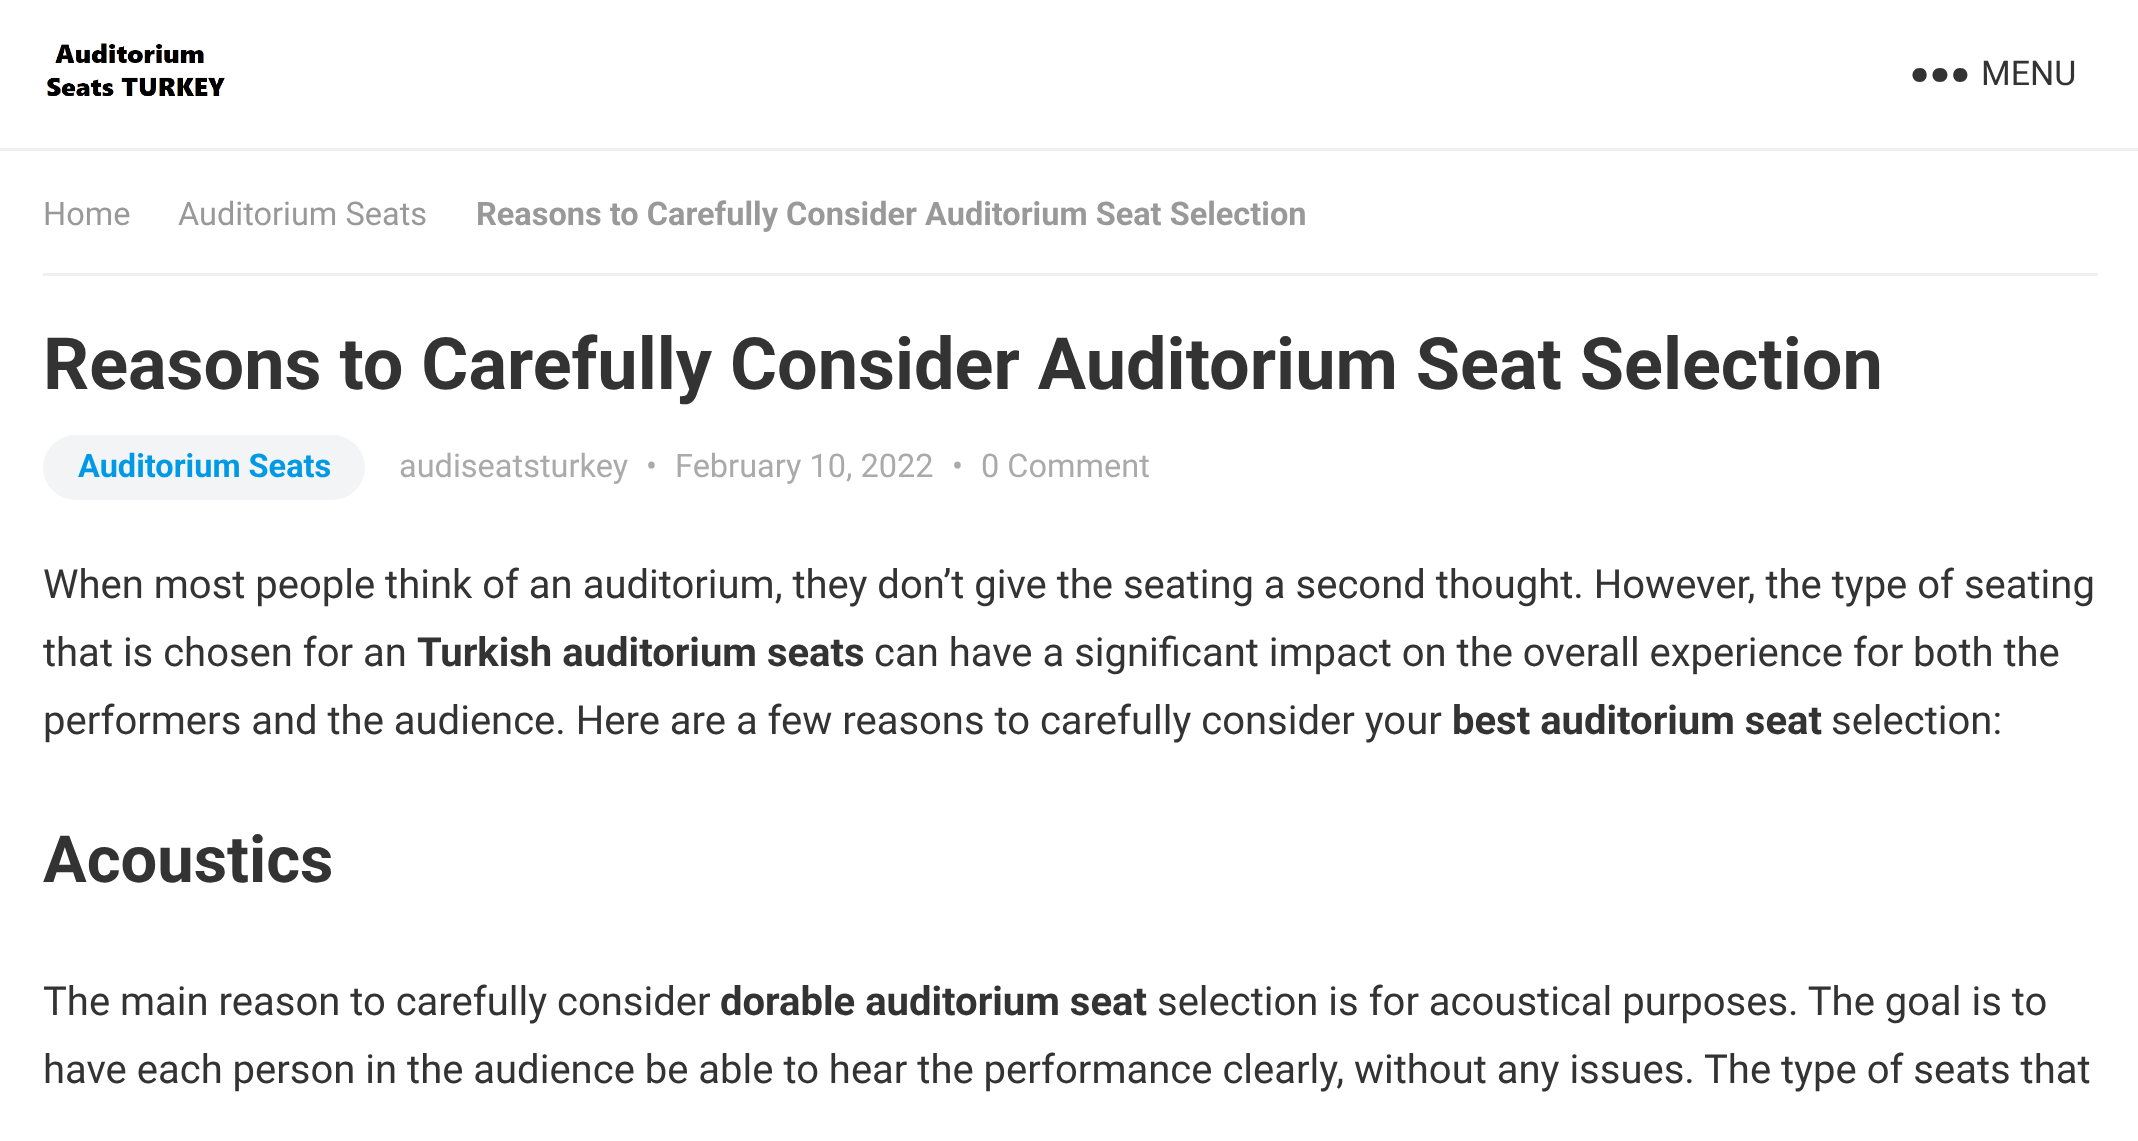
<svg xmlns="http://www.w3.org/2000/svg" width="2138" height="1141">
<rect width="100%" height="100%" fill="#fff"/>
<rect y="148" width="2138" height="3" fill="#f0f0f0"/>
<image x="47" y="43" width="178" height="53" href="media/1.png"/>
<text x="1981" y="85" style="font-family:Roboto;font-size:34px;fill:#333">MENU</text>
<path d="M1920 82c-10 0-10-14 0-14c9 0 9 14 0 14zm20 0c-10 0-10-14 0-14c10 0 10 14 0 14zm20 0c-9 0-9-14 0-14c10 0 10 14 0 14z" fill="#333" fill-rule="evenodd"/>
<rect x="43" y="273" width="2055" height="3" fill="#f0f0f0"/>
<text x="43" y="225" style="font-family:Roboto;font-size:32.5px;fill:#999">Home</text>
<text x="178" y="225" style="font-family:Roboto;font-size:32.5px;fill:#999">Auditorium Seats</text>
<text x="476" y="225" style="font-family:Roboto;font-size:32.5px;font-weight:bold;fill:#999">Reasons to Carefully Consider Auditorium Seat Selection</text>
<text x="43" y="389" style="font-family:Roboto;font-size:72px;font-weight:bold;fill:#333">Reasons to Carefully Consider Auditorium Seat Selection</text>
<rect x="43" y="435" width="322" height="65" rx="32.5" fill="#f3f4f5"/>
<text x="78" y="477" style="font-family:Roboto;font-size:32.5px;font-weight:bold;fill:#0099e5">Auditorium Seats</text>
<text x="399" y="477" style="font-family:Roboto;font-size:32.5px;fill:#aaa">audiseatsturkey</text>
<text x="646" y="477" style="font-family:Roboto;font-size:32.5px;fill:#aaa">•</text>
<text x="675" y="477" style="font-family:Roboto;font-size:32.5px;fill:#aaa">February 10, 2022</text>
<text x="952" y="477" style="font-family:Roboto;font-size:32.5px;fill:#aaa">•</text>
<text x="981" y="477" style="font-family:Roboto;font-size:32.5px;fill:#aaa">0 Comment</text>
<text x="43" y="598" style="font-family:Roboto;font-size:40px;fill:#333">When most people think of an auditorium, they don’t give the seating a second thought. However, the type of seating</text>
<text x="43" y="666" style="font-family:Roboto;font-size:40px;fill:#333">that is chosen for an</text>
<text x="417" y="666" style="font-family:Roboto;font-size:40px;font-weight:bold;fill:#333">Turkish auditorium seats</text>
<text x="874" y="666" style="font-family:Roboto;font-size:40px;fill:#333">can have a significant impact on the overall experience for both the</text>
<text x="43" y="734" style="font-family:Roboto;font-size:40px;fill:#333">performers and the audience. Here are a few reasons to carefully consider your</text>
<text x="1452" y="734" style="font-family:Roboto;font-size:40px;font-weight:bold;fill:#333">best auditorium seat</text>
<text x="1831" y="734" style="font-family:Roboto;font-size:40px;fill:#333">selection:</text>
<text x="43" y="882" style="font-family:Roboto;font-size:65px;font-weight:bold;fill:#333">Acoustics</text>
<text x="43" y="1015" style="font-family:Roboto;font-size:40px;fill:#333">The main reason to carefully consider</text>
<text x="720" y="1015" style="font-family:Roboto;font-size:40px;font-weight:bold;fill:#333">dorable auditorium seat</text>
<text x="1157" y="1015" style="font-family:Roboto;font-size:40px;fill:#333">selection is for acoustical purposes. The goal is to</text>
<text x="43" y="1083" style="font-family:Roboto;font-size:40px;fill:#333">have each person in the audience be able to hear the performance clearly, without any issues. The type of seats that</text>
</svg>
